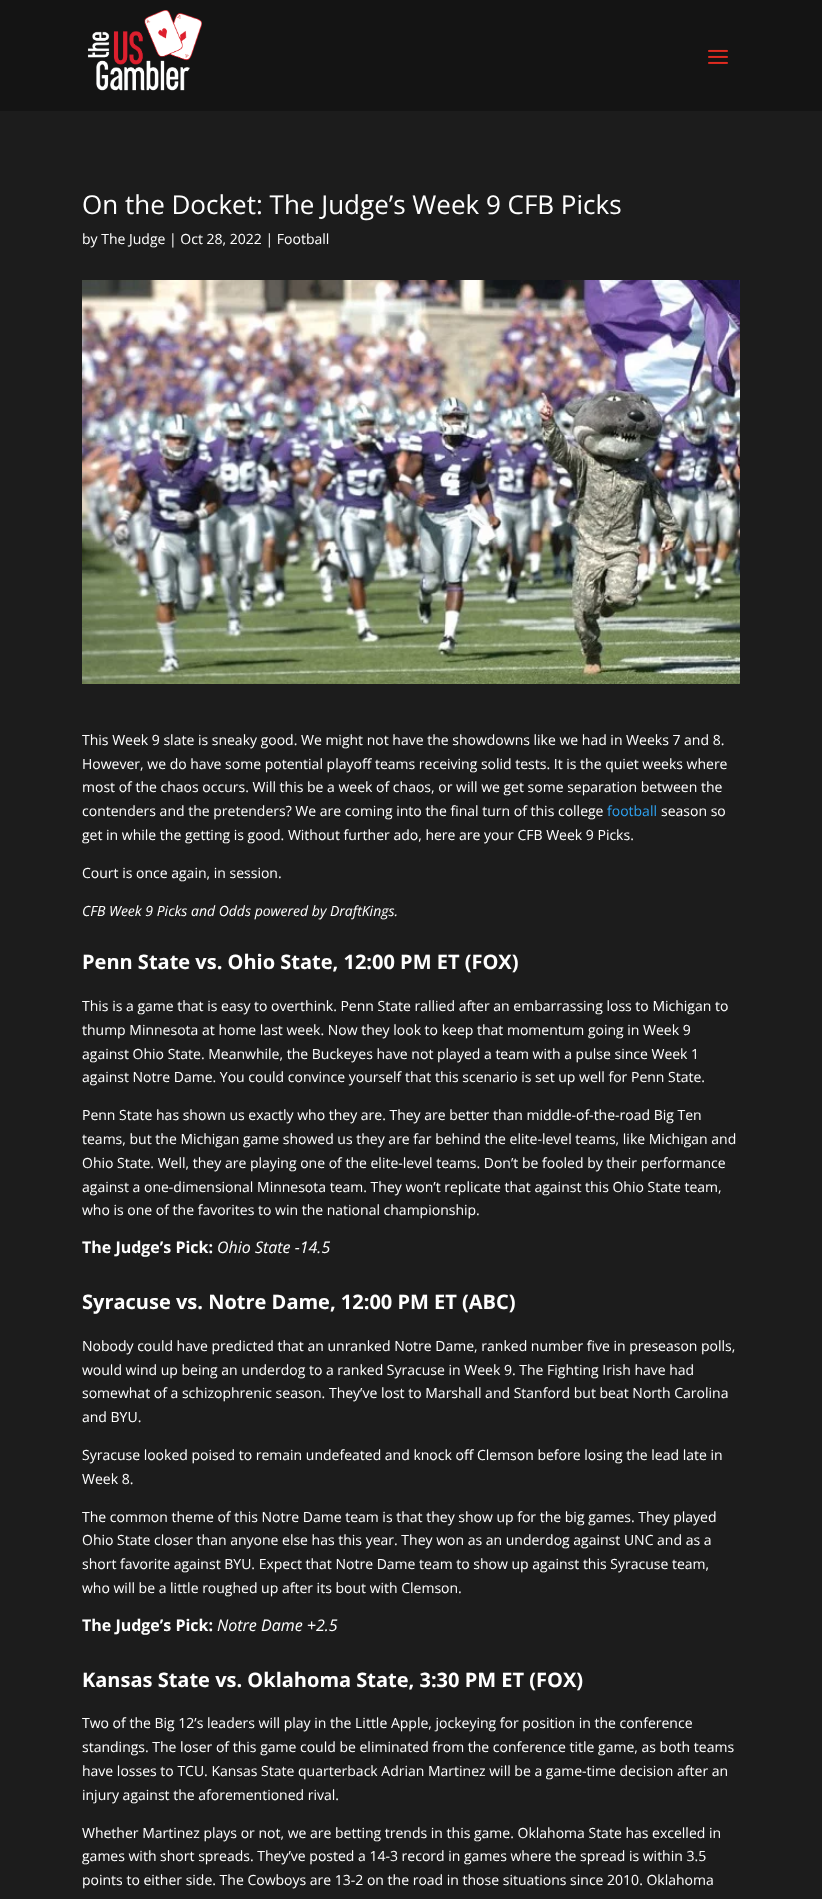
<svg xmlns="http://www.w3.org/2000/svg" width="822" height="1899">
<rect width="100%" height="100%" fill="#1c1c1c"/>
<rect width="822" height="111" fill="#141414"/>
<image x="87" y="10" width="115" height="81" href="media/1.png"/>
<image x="708" y="49" width="20" height="15" href="media/2.png"/>
<text x="82" y="214" style="font-family:Open Sans;font-size:26px;fill:#fff">On the Docket: The Judge’s Week 9 CFB Picks</text>
<text x="82" y="244" style="font-family:Open Sans;font-size:14px;fill:#fff">by The Judge | Oct 28, 2022 | Football</text>
<image x="82" y="280" width="658" height="404" href="media/3.png"/>
<text x="82" y="745" style="font-family:Open Sans;font-size:14px;fill:#fff">This Week 9 slate is sneaky good. We might not have the showdowns like we had in Weeks 7 and 8.</text>
<text x="82" y="769" style="font-family:Open Sans;font-size:14px;fill:#fff">However, we do have some potential playoff teams receiving solid tests. It is the quiet weeks where</text>
<text x="82" y="792" style="font-family:Open Sans;font-size:14px;fill:#fff">most of the chaos occurs. Will this be a week of chaos, or will we get some separation between the</text>
<text x="82" y="816" style="font-family:Open Sans;font-size:14px;fill:#fff">contenders and the pretenders? We are coming into the final turn of this college</text>
<text x="607" y="816" style="font-family:Open Sans;font-size:14px;fill:#2ea3f2">football</text>
<text x="661" y="816" style="font-family:Open Sans;font-size:14px;fill:#fff">season so</text>
<text x="82" y="840" style="font-family:Open Sans;font-size:14px;fill:#fff">get in while the getting is good. Without further ado, here are your CFB Week 9 Picks.</text>
<text x="82" y="878" style="font-family:Open Sans;font-size:14px;fill:#fff">Court is once again, in session.</text>
<text x="82" y="916" style="font-family:Open Sans;font-size:14px;font-style:italic;fill:#fff">CFB Week 9 Picks and Odds powered by DraftKings.</text>
<text x="82" y="969" style="font-family:Open Sans;font-size:20px;font-weight:bold;fill:#fff">Penn State vs. Ohio State, 12:00 PM ET (FOX)</text>
<text x="82" y="1011" style="font-family:Open Sans;font-size:14px;fill:#fff">This is a game that is easy to overthink. Penn State rallied after an embarrassing loss to Michigan to</text>
<text x="82" y="1035" style="font-family:Open Sans;font-size:14px;fill:#fff">thump Minnesota at home last week. Now they look to keep that momentum going in Week 9</text>
<text x="82" y="1059" style="font-family:Open Sans;font-size:14px;fill:#fff">against Ohio State. Meanwhile, the Buckeyes have not played a team with a pulse since Week 1</text>
<text x="82" y="1082" style="font-family:Open Sans;font-size:14px;fill:#fff">against Notre Dame. You could convince yourself that this scenario is set up well for Penn State.</text>
<text x="82" y="1120" style="font-family:Open Sans;font-size:14px;fill:#fff">Penn State has shown us exactly who they are. They are better than middle-of-the-road Big Ten</text>
<text x="82" y="1144" style="font-family:Open Sans;font-size:14px;fill:#fff">teams, but the Michigan game showed us they are far behind the elite-level teams, like Michigan and</text>
<text x="82" y="1168" style="font-family:Open Sans;font-size:14px;fill:#fff">Ohio State. Well, they are playing one of the elite-level teams. Don’t be fooled by their performance</text>
<text x="82" y="1192" style="font-family:Open Sans;font-size:14px;fill:#fff">against a one-dimensional Minnesota team. They won’t replicate that against this Ohio State team,</text>
<text x="82" y="1215" style="font-family:Open Sans;font-size:14px;fill:#fff">who is one of the favorites to win the national championship.</text>
<text x="82" y="1253" style="font-family:Open Sans;font-size:16px;font-weight:bold;fill:#fff">The Judge’s Pick:</text>
<text x="217" y="1253" style="font-family:Open Sans;font-size:16px;font-style:italic;fill:#fff">Ohio State -14.5</text>
<text x="82" y="1309" style="font-family:Open Sans;font-size:20px;font-weight:bold;fill:#fff">Syracuse vs. Notre Dame, 12:00 PM ET (ABC)</text>
<text x="82" y="1351" style="font-family:Open Sans;font-size:14px;fill:#fff">Nobody could have predicted that an unranked Notre Dame, ranked number five in preseason polls,</text>
<text x="82" y="1375" style="font-family:Open Sans;font-size:14px;fill:#fff">would wind up being an underdog to a ranked Syracuse in Week 9. The Fighting Irish have had</text>
<text x="82" y="1398" style="font-family:Open Sans;font-size:14px;fill:#fff">somewhat of a schizophrenic season. They’ve lost to Marshall and Stanford but beat North Carolina</text>
<text x="82" y="1422" style="font-family:Open Sans;font-size:14px;fill:#fff">and BYU.</text>
<text x="82" y="1460" style="font-family:Open Sans;font-size:14px;fill:#fff">Syracuse looked poised to remain undefeated and knock off Clemson before losing the lead late in</text>
<text x="82" y="1484" style="font-family:Open Sans;font-size:14px;fill:#fff">Week 8.</text>
<text x="82" y="1522" style="font-family:Open Sans;font-size:14px;fill:#fff">The common theme of this Notre Dame team is that they show up for the big games. They played</text>
<text x="82" y="1545" style="font-family:Open Sans;font-size:14px;fill:#fff">Ohio State closer than anyone else has this year. They won as an underdog against UNC and as a</text>
<text x="82" y="1569" style="font-family:Open Sans;font-size:14px;fill:#fff">short favorite against BYU. Expect that Notre Dame team to show up against this Syracuse team,</text>
<text x="82" y="1593" style="font-family:Open Sans;font-size:14px;fill:#fff">who will be a little roughed up after its bout with Clemson.</text>
<text x="82" y="1631" style="font-family:Open Sans;font-size:16px;font-weight:bold;fill:#fff">The Judge’s Pick:</text>
<text x="217" y="1631" style="font-family:Open Sans;font-size:16px;font-style:italic;fill:#fff">Notre Dame +2.5</text>
<text x="82" y="1687" style="font-family:Open Sans;font-size:20px;font-weight:bold;fill:#fff">Kansas State vs. Oklahoma State, 3:30 PM ET (FOX)</text>
<text x="82" y="1728" style="font-family:Open Sans;font-size:14px;fill:#fff">Two of the Big 12’s leaders will play in the Little Apple, jockeying for position in the conference</text>
<text x="82" y="1752" style="font-family:Open Sans;font-size:14px;fill:#fff">standings. The loser of this game could be eliminated from the conference title game, as both teams</text>
<text x="82" y="1776" style="font-family:Open Sans;font-size:14px;fill:#fff">have losses to TCU. Kansas State quarterback Adrian Martinez will be a game-time decision after an</text>
<text x="82" y="1800" style="font-family:Open Sans;font-size:14px;fill:#fff">injury against the aforementioned rival.</text>
<text x="82" y="1838" style="font-family:Open Sans;font-size:14px;fill:#fff">Whether Martinez plays or not, we are betting trends in this game. Oklahoma State has excelled in</text>
<text x="82" y="1861" style="font-family:Open Sans;font-size:14px;fill:#fff">games with short spreads. They’ve posted a 14-3 record in games where the spread is within 3.5</text>
<text x="82" y="1885" style="font-family:Open Sans;font-size:14px;fill:#fff">points to either side. The Cowboys are 13-2 on the road in those situations since 2010. Oklahoma</text>
</svg>
